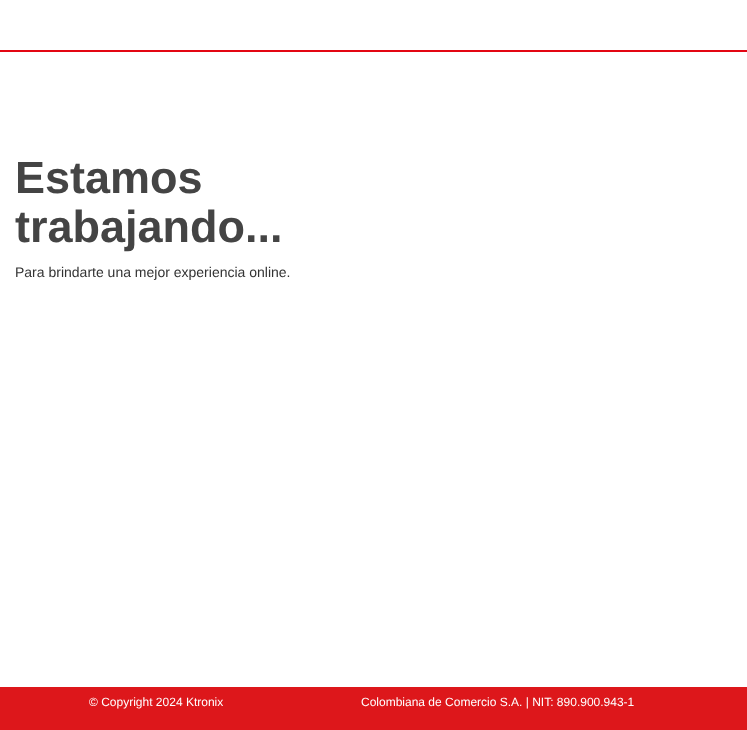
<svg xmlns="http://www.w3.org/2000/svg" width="747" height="730">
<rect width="100%" height="100%" fill="#fff"/>
<rect y="50" width="747" height="2" fill="#e30613"/>
<text x="15" y="193" style="font-family:Liberation Sans;font-size:45px;font-weight:bold;fill:#444">Estamos</text>
<text x="15" y="242" style="font-family:Liberation Sans;font-size:45px;font-weight:bold;fill:#444">trabajando...</text>
<text x="15" y="277" style="font-family:Liberation Sans;font-size:14px;fill:#333">Para brindarte una mejor experiencia online.</text>
<rect y="687" width="747" height="43" fill="#dd171b"/>
<text x="89" y="706" style="font-family:Liberation Sans;font-size:12px;fill:#fff">© Copyright 2024 Ktronix</text>
<text x="361" y="706" style="font-family:Liberation Sans;font-size:12px;fill:#fff">Colombiana de Comercio S.A. | NIT: 890.900.943-1</text>
</svg>
